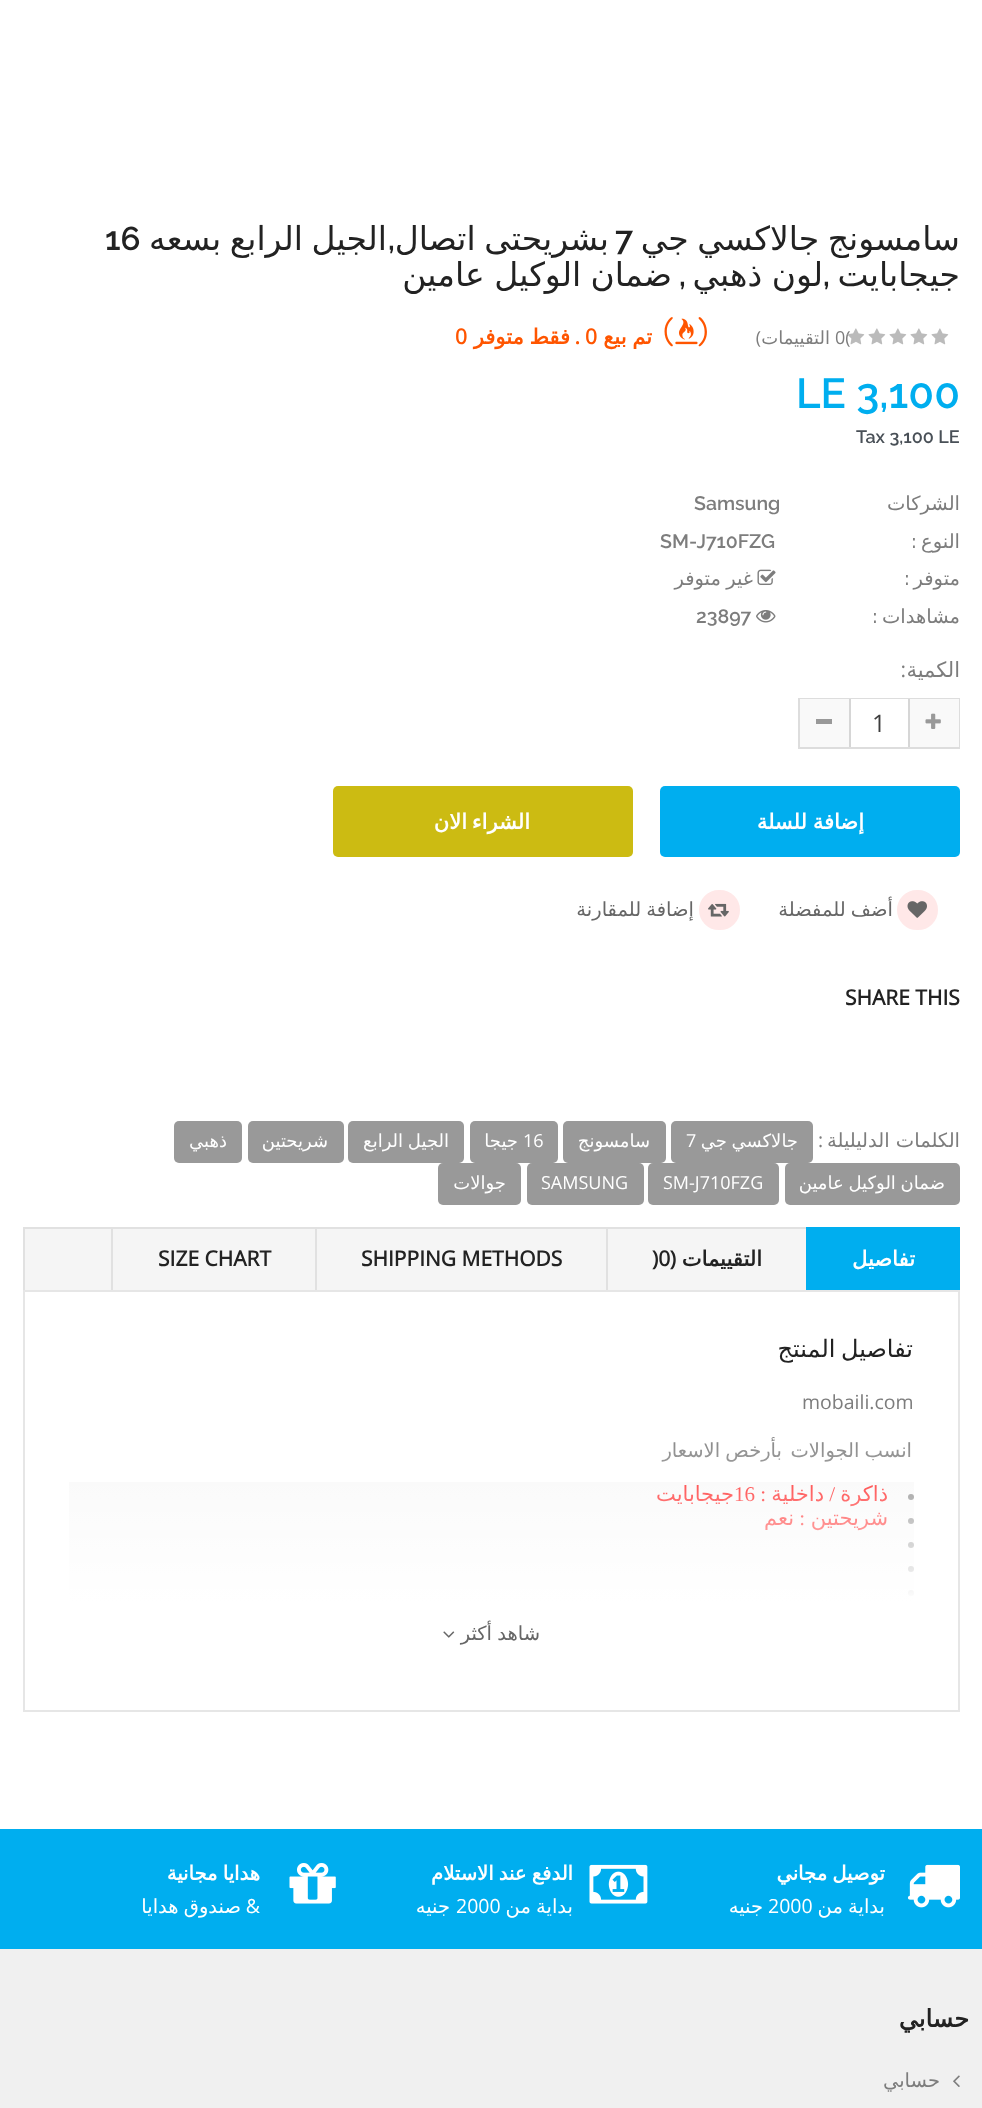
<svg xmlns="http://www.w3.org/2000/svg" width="982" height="2108">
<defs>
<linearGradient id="g1" gradientUnits="userSpaceOnUse" x1="491" y1="1422" x2="491" y2="1602"><stop offset="0" stop-color="#fff" stop-opacity="0"/><stop offset="1" stop-color="#fff"/></linearGradient>
</defs>
<rect width="100%" height="100%" fill="#fff"/>
<text x="960" y="250" word-spacing="-2" style="font-family:DejaVu Sans;font-size:33px;direction:rtl;fill:#222">سامسونج جالاكسي جي</text>
<text x="615" y="250" style="font-family:Raleway;font-size:33px;font-weight:600;fill:#222">7</text>
<text x="609" y="250" word-spacing="-2" style="font-family:DejaVu Sans;font-size:33px;direction:rtl;fill:#222">بشريحتى اتصال</text>
<text x="395" y="250" style="font-family:Raleway;font-size:33px;font-weight:600;direction:rtl;fill:#222">,</text>
<text x="387" y="250" word-spacing="-2" style="font-family:DejaVu Sans;font-size:33px;direction:rtl;fill:#222">الجيل الرابع بسعه</text>
<text x="105" y="250" style="font-family:Raleway;font-size:33px;font-weight:600;fill:#222">16</text>
<text x="960" y="286" style="font-family:DejaVu Sans;font-size:33px;direction:rtl;fill:#222">جيجابايت</text>
<text x="830" y="286" style="font-family:Raleway;font-size:33px;font-weight:600;direction:rtl;fill:#222">,</text>
<text x="823" y="286" word-spacing="-1" style="font-family:DejaVu Sans;font-size:33px;direction:rtl;fill:#222">لون ذهبي</text>
<text x="686" y="286" style="font-family:Raleway;font-size:33px;font-weight:600;direction:rtl;fill:#222">,</text>
<text x="672" y="286" word-spacing="-1" style="font-family:DejaVu Sans;font-size:33px;direction:rtl;fill:#222">ضمان الوكيل عامين</text>
<image x="931" y="328" width="18" height="17" href="media/1.png"/>
<image x="910" y="328" width="18" height="17" href="media/1.png"/>
<image x="889" y="328" width="18" height="17" href="media/1.png"/>
<image x="868" y="328" width="18" height="17" href="media/1.png"/>
<text x="835" y="344" style="font-family:Open Sans;font-size:18px;fill:#7d7d7d">0(</text>
<image x="847" y="328" width="18" height="17" href="media/2.png"/>
<text x="830" y="344" style="font-family:DejaVu Sans;font-size:18px;direction:rtl;fill:#7d7d7d">التقييمات</text>
<text x="761" y="344" style="font-family:Open Sans;font-size:18px;direction:rtl;fill:#7d7d7d">)</text>
<image x="664" y="317" width="43" height="30" href="media/3.png"/>
<text x="652" y="344" word-spacing="-1" style="font-family:DejaVu Sans;font-size:21px;font-weight:bold;direction:rtl;fill:#f50">تم بيع</text>
<text x="585" y="344" style="font-family:Open Sans;font-size:21px;font-weight:bold;fill:#f50">0</text>
<text x="580" y="344" style="font-family:Open Sans;font-size:21px;font-weight:bold;direction:rtl;fill:#f50">.</text>
<text x="570" y="344" word-spacing="-1" style="font-family:DejaVu Sans;font-size:21px;font-weight:bold;direction:rtl;fill:#f50">فقط متوفر</text>
<text x="455" y="344" style="font-family:Open Sans;font-size:21px;font-weight:bold;fill:#f50">0</text>
<text x="796" y="408" style="font-family:Raleway;font-size:42px;font-weight:600;fill:#00aeef">LE 3,100</text>
<text x="856" y="443" style="font-family:Raleway;font-size:18px;font-weight:600;fill:#495057">Tax 3,100 LE</text>
<text x="960" y="510" style="font-family:DejaVu Sans;font-size:19.5px;direction:rtl;fill:#7d7d7d">الشركات</text>
<text x="694" y="510" style="font-family:Raleway;font-size:19.5px;font-weight:600;fill:#7d7d7d">Samsung</text>
<text x="960" y="548" style="font-family:DejaVu Sans;font-size:19.5px;direction:rtl;fill:#7d7d7d">النوع</text>
<text x="916" y="548" style="font-family:Raleway;font-size:19.5px;font-weight:600;direction:rtl;fill:#7d7d7d">:</text>
<text x="660" y="548" style="font-family:Raleway;font-size:19.5px;font-weight:600;fill:#7d7d7d">SM-J710FZG</text>
<text x="960" y="585" style="font-family:DejaVu Sans;font-size:19.5px;direction:rtl;fill:#7d7d7d">متوفر</text>
<text x="909" y="585" style="font-family:Raleway;font-size:19.5px;font-weight:600;direction:rtl;fill:#7d7d7d">:</text>
<image x="757" y="569" width="19" height="16" href="media/4.png"/>
<text x="753" y="585" word-spacing="-1" style="font-family:DejaVu Sans;font-size:19.5px;direction:rtl;fill:#7d7d7d">غير متوفر</text>
<text x="960" y="623" style="font-family:DejaVu Sans;font-size:19.5px;direction:rtl;fill:#7d7d7d">مشاهدات</text>
<text x="877" y="623" style="font-family:Raleway;font-size:19.5px;font-weight:600;direction:rtl;fill:#7d7d7d">:</text>
<image x="756" y="610" width="20" height="13" href="media/5.png"/>
<text x="696" y="623" style="font-family:Raleway;font-size:19.5px;font-weight:600;fill:#7d7d7d">23897</text>
<text x="960" y="677" style="font-family:DejaVu Sans;font-size:21px;direction:rtl;fill:#7d7d7d">الكمية</text>
<text x="906" y="677" style="font-family:Open Sans;font-size:21px;direction:rtl;fill:#7d7d7d">:</text>
<rect x="799" y="699" width="160" height="49" fill="none" stroke="#ddd" stroke-width="2"/>
<rect x="910" y="699" width="49" height="48" fill="#f9f9f9"/>
<image x="925" y="713" width="16" height="16" href="media/6.png"/>
<rect x="851" y="699" width="57" height="1" fill="#fff"/>
<rect x="908" y="699" width="2" height="48" fill="#d6d6d6"/>
<rect x="849" y="699" width="2" height="48" fill="#d6d6d6"/>
<text x="872" y="732" style="font-family:Open Sans;font-size:24px;fill:#3d3d3d">1</text>
<rect x="800" y="699" width="49" height="48" fill="#f9f9f9"/>
<rect x="816" y="719" width="16" height="5" fill="#999"/>
<rect x="660" y="786" width="300" height="71" rx="5" fill="#00aeef"/>
<text x="864" y="829" word-spacing="-1" style="font-family:DejaVu Sans;font-size:21px;font-weight:bold;direction:rtl;fill:#fff">إضافة للسلة</text>
<rect x="333" y="786" width="300" height="71" rx="5" fill="#ccbb12"/>
<text x="530" y="829" word-spacing="-2" style="font-family:DejaVu Sans;font-size:21px;font-weight:bold;direction:rtl;fill:#fff">الشراء الان</text>
<rect x="898" y="891" width="39" height="38" rx="19" fill="#ffe8e8" stroke="#ffe8e8" stroke-width="2"/>
<image x="907" y="901" width="20" height="17" href="media/7.png"/>
<text x="893" y="916" word-spacing="-1" style="font-family:DejaVu Sans;font-size:19.5px;direction:rtl;fill:#666">أضف للمفضلة</text>
<rect x="700" y="891" width="39" height="38" rx="19" fill="#ffe8e8" stroke="#ffe8e8" stroke-width="2"/>
<image x="708" y="903" width="21" height="14" href="media/8.png"/>
<text x="694" y="916" word-spacing="-1" style="font-family:DejaVu Sans;font-size:19.5px;direction:rtl;fill:#666">إضافة للمقارنة</text>
<text x="845" y="1005" style="font-family:Open Sans;font-size:21px;font-weight:bold;fill:#222">SHARE THIS</text>
<text x="960" y="1147" style="font-family:DejaVu Sans;font-size:19.5px;direction:rtl;fill:#7d7d7d">الكلمات الدليليلة</text>
<text x="823" y="1147" style="font-family:Open Sans;font-size:19.5px;direction:rtl;fill:#7d7d7d">:</text>
<rect x="671" y="1121" width="142" height="42" rx="5" fill="#999"/>
<text x="798" y="1147" word-spacing="-1" style="font-family:DejaVu Sans;font-size:18px;direction:rtl;fill:#fff">جالاكسي جي</text>
<text x="686" y="1147" style="font-family:Open Sans;font-size:18px;fill:#fff">7</text>
<rect x="563" y="1121" width="103" height="42" rx="5" fill="#999"/>
<text x="650" y="1147" style="font-family:DejaVu Sans;font-size:18px;direction:rtl;fill:#fff">سامسونج</text>
<rect x="470" y="1121" width="88" height="42" rx="5" fill="#999"/>
<text x="523" y="1147" style="font-family:Open Sans;font-size:18px;fill:#fff">16</text>
<text x="518" y="1147" style="font-family:DejaVu Sans;font-size:18px;direction:rtl;fill:#fff">جيجا</text>
<rect x="348" y="1121" width="116" height="42" rx="5" fill="#999"/>
<text x="449" y="1147" word-spacing="-1" style="font-family:DejaVu Sans;font-size:18px;direction:rtl;fill:#fff">الجيل الرابع</text>
<rect x="248" y="1121" width="96" height="42" rx="5" fill="#999"/>
<text x="328" y="1147" style="font-family:DejaVu Sans;font-size:18px;direction:rtl;fill:#fff">شريحتين</text>
<rect x="174" y="1121" width="68" height="42" rx="5" fill="#999"/>
<text x="227" y="1147" style="font-family:DejaVu Sans;font-size:18px;direction:rtl;fill:#fff">ذهبي</text>
<rect x="785" y="1163" width="175" height="42" rx="5" fill="#999"/>
<text x="945" y="1189" word-spacing="-1" style="font-family:DejaVu Sans;font-size:18px;direction:rtl;fill:#fff">ضمان الوكيل عامين</text>
<rect x="648" y="1163" width="131" height="42" rx="5" fill="#999"/>
<text x="663" y="1189" style="font-family:Open Sans;font-size:18px;fill:#fff">SM-J710FZG</text>
<rect x="527" y="1163" width="117" height="42" rx="5" fill="#999"/>
<text x="541" y="1189" style="font-family:Open Sans;font-size:18px;fill:#fff">SAMSUNG</text>
<rect x="438" y="1163" width="83" height="42" rx="5" fill="#999"/>
<text x="506" y="1189" style="font-family:DejaVu Sans;font-size:18px;direction:rtl;fill:#fff">جوالات</text>
<rect x="25" y="1229" width="781" height="61" fill="#f5f5f5"/>
<rect x="24" y="1228" width="935" height="63" fill="none" stroke="#e1e1e1" stroke-width="2"/>
<rect x="806" y="1227" width="154" height="63" fill="#00aeef"/>
<text x="915" y="1266" style="font-family:DejaVu Sans;font-size:21px;font-weight:bold;direction:rtl;fill:#fff">تفاصيل</text>
<rect x="606" y="1227" width="2" height="63" fill="#e1e1e1"/>
<text x="762" y="1266" style="font-family:DejaVu Sans;font-size:21px;font-weight:bold;direction:rtl;fill:#222">التقييمات</text>
<text x="676" y="1266" style="font-family:Open Sans;font-size:21px;font-weight:bold;direction:rtl;fill:#222">(</text>
<text x="652" y="1266" style="font-family:Open Sans;font-size:21px;font-weight:bold;fill:#222">)0</text>
<rect x="315" y="1227" width="2" height="63" fill="#e1e1e1"/>
<text x="361" y="1266" style="font-family:Open Sans;font-size:21px;font-weight:bold;fill:#222">SHIPPING METHODS</text>
<rect x="111" y="1227" width="2" height="63" fill="#e1e1e1"/>
<text x="158" y="1266" style="font-family:Open Sans;font-size:21px;font-weight:bold;fill:#222">SIZE CHART</text>
<rect x="24" y="1291" width="935" height="420" fill="none" stroke="#e6e6e6" stroke-width="2"/>
<text x="913" y="1357" word-spacing="-2" style="font-family:DejaVu Sans;font-size:24px;direction:rtl;fill:#222">تفاصيل المنتج</text>
<text x="802" y="1409" style="font-family:Open Sans;font-size:19.5px;fill:#7d7d7d">mobaili.com</text>
<text x="912" y="1457" word-spacing="-1" style="font-family:DejaVu Sans;font-size:19.5px;direction:rtl;fill:#7d7d7d">انسب الجوالات</text>
<text x="782" y="1457" word-spacing="-1" style="font-family:DejaVu Sans;font-size:19.5px;direction:rtl;fill:#7d7d7d">بأرخص الاسعار</text>
<rect x="69" y="1482" width="845" height="119" fill="#f8f8f8"/>
<circle cx="911" cy="1497" r="3" fill="#7d7d7d"/>
<text x="888" y="1501" style="font-family:DejaVu Sans;font-size:21px;direction:rtl;fill:#f00">ذاكرة</text>
<text x="835" y="1501" style="font-family:Liberation Serif;font-size:21px;direction:rtl;fill:#f00">/</text>
<text x="824" y="1501" style="font-family:DejaVu Sans;font-size:21px;direction:rtl;fill:#f00">داخلية</text>
<text x="734" y="1501" style="font-family:Liberation Serif;font-size:21px;fill:#f00">16 :</text>
<text x="734" y="1501" style="font-family:DejaVu Sans;font-size:21px;direction:rtl;fill:#f00">جيجابايت</text>
<circle cx="911" cy="1521" r="3" fill="#7d7d7d"/>
<text x="888" y="1525" style="font-family:DejaVu Sans;font-size:21px;direction:rtl;fill:#f00">شريحتين</text>
<text x="805" y="1525" style="font-family:Liberation Serif;font-size:21px;direction:rtl;fill:#f00">:</text>
<text x="794" y="1525" style="font-family:DejaVu Sans;font-size:21px;direction:rtl;fill:#f00">نعم</text>
<circle cx="911" cy="1545" r="3" fill="#7d7d7d"/>
<circle cx="911" cy="1569" r="3" fill="#7d7d7d"/>
<circle cx="911" cy="1593" r="3" fill="#7d7d7d"/>
<rect x="69" y="1437" width="845" height="164" fill="url(#g1)"/>
<text x="540" y="1640" word-spacing="-1" style="font-family:DejaVu Sans;font-size:19.5px;direction:rtl;fill:#666">شاهد أكثر</text>
<image x="443" y="1631" width="12" height="7" href="media/9.png"/>
<rect y="1949" width="982" height="159" fill="#f0f0f0"/>
<rect y="1829" width="982" height="120" fill="#00aeef"/>
<image x="907" y="1864" width="53" height="44" href="media/10.png"/>
<text x="885" y="1880" word-spacing="-1" style="font-family:DejaVu Sans;font-size:19.5px;font-weight:bold;direction:rtl;fill:#fff">توصيل مجاني</text>
<text x="885" y="1913" word-spacing="-1" style="font-family:DejaVu Sans;font-size:19.5px;direction:rtl;fill:#fff">بداية من</text>
<text x="768" y="1913" style="font-family:Open Sans;font-size:19.5px;fill:#fff">2000</text>
<text x="763" y="1913" style="font-family:DejaVu Sans;font-size:19.5px;direction:rtl;fill:#fff">جنيه</text>
<image x="589" y="1864" width="59" height="40" href="media/11.png"/>
<text x="573" y="1880" word-spacing="-1" style="font-family:DejaVu Sans;font-size:19.5px;font-weight:bold;direction:rtl;fill:#fff">الدفع عند الاستلام</text>
<text x="573" y="1913" word-spacing="-1" style="font-family:DejaVu Sans;font-size:19.5px;direction:rtl;fill:#fff">بداية من</text>
<text x="456" y="1913" style="font-family:Open Sans;font-size:19.5px;fill:#fff">2000</text>
<text x="450" y="1913" style="font-family:DejaVu Sans;font-size:19.5px;direction:rtl;fill:#fff">جنيه</text>
<image x="289" y="1863" width="47" height="41" href="media/12.png"/>
<text x="260" y="1880" word-spacing="-1" style="font-family:DejaVu Sans;font-size:19.5px;font-weight:bold;direction:rtl;fill:#fff">هدايا مجانية</text>
<text x="260" y="1913" style="font-family:Open Sans;font-size:19.5px;direction:rtl;fill:#fff">&amp;</text>
<text x="241" y="1913" word-spacing="-1" style="font-family:DejaVu Sans;font-size:19.5px;direction:rtl;fill:#fff">صندوق هدايا</text>
<text x="969" y="2027" style="font-family:DejaVu Sans;font-size:24px;font-weight:bold;letter-spacing:2px;direction:rtl;fill:#222">حسابي</text>
<image x="953" y="2075" width="7" height="12" href="media/13.png"/>
<text x="940" y="2087" style="font-family:DejaVu Sans;font-size:19.5px;direction:rtl;fill:#7d7d7d">حسابي</text>
</svg>
